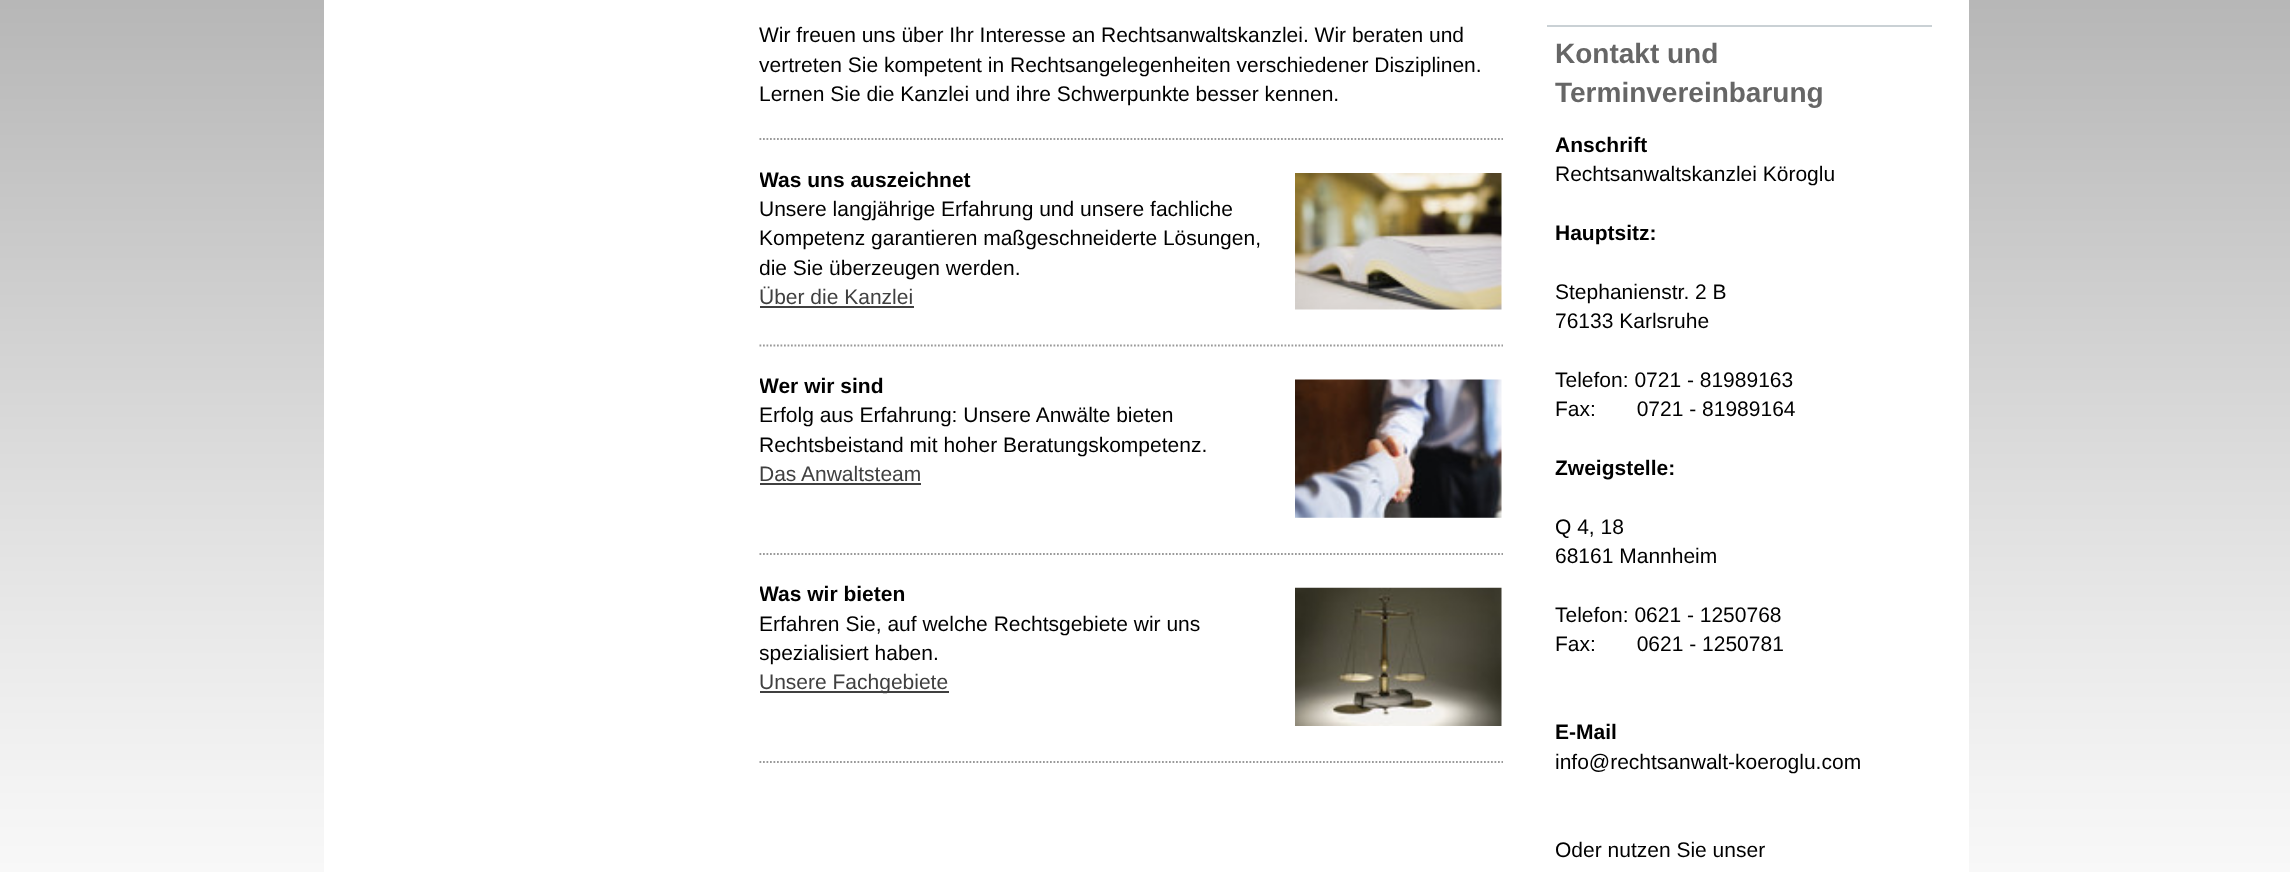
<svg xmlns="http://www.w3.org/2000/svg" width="2290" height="872">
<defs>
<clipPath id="clip1"><rect x="760" y="166" width="743" height="151"/></clipPath>
<clipPath id="clip2"><rect x="760" y="373" width="743" height="152"/></clipPath>
<clipPath id="clip3"><rect x="760" y="581" width="743" height="152"/></clipPath>
</defs>
<rect width="100%" height="100%" fill="#fff"/>
<image x="0" y="0" width="2290" height="872" href="media/1.png"/>
<rect x="324" width="1645" height="872" fill="#fff"/>
<text x="759" y="42" style="font-family:Liberation Sans;font-size:21px;fill:#000">Wir freuen uns über Ihr Interesse an Rechtsanwaltskanzlei. Wir beraten und</text>
<text x="759" y="72" style="font-family:Liberation Sans;font-size:21px;fill:#000">vertreten Sie kompetent in Rechtsangelegenheiten verschiedener Disziplinen.</text>
<text x="759" y="101" style="font-family:Liberation Sans;font-size:21px;fill:#000">Lernen Sie die Kanzlei und ihre Schwerpunkte besser kennen.</text>
<path d="M759.5 139h743.5" fill="none" stroke="#999" stroke-width="1.8" stroke-dasharray="1.75 1.75"/>
<g clip-path="url(#clip1)">
<text x="759" y="187" style="font-family:Liberation Sans;font-size:21px;font-weight:bold;fill:#000">Was uns auszeichnet</text>
</g>
<text x="759" y="216" style="font-family:Liberation Sans;font-size:21px;fill:#000">Unsere langjährige Erfahrung und unsere fachliche</text>
<text x="759" y="245" style="font-family:Liberation Sans;font-size:21px;fill:#000">Kompetenz garantieren maßgeschneiderte Lösungen,</text>
<g clip-path="url(#clip1)">
<text x="759" y="275" style="font-family:Liberation Sans;font-size:21px;fill:#000">die Sie überzeugen werden.</text>
</g>
<text x="759" y="304" style="font-family:Liberation Sans;font-size:21px;fill:#404040">Über die Kanzlei</text>
<rect x="760" y="306" width="154" height="2" fill="#404040"/>
<image x="1295" y="173" width="207" height="137" href="media/2.png"/>
<path d="M759.5 345.5h743.5" fill="none" stroke="#999" stroke-width="1.8" stroke-dasharray="1.75 1.75"/>
<g clip-path="url(#clip2)">
<text x="759" y="393" style="font-family:Liberation Sans;font-size:21px;font-weight:bold;fill:#000">Wer wir sind</text>
</g>
<text x="759" y="422" style="font-family:Liberation Sans;font-size:21px;fill:#000">Erfolg aus Erfahrung: Unsere Anwälte bieten</text>
<text x="759" y="452" style="font-family:Liberation Sans;font-size:21px;fill:#000">Rechtsbeistand mit hoher Beratungskompetenz.</text>
<text x="759" y="481" style="font-family:Liberation Sans;font-size:21px;fill:#404040">Das Anwaltsteam</text>
<rect x="760" y="483" width="161" height="2" fill="#404040"/>
<image x="1295" y="379" width="207" height="139" href="media/3.png"/>
<path d="M759.5 554h743.5" fill="none" stroke="#999" stroke-width="1.8" stroke-dasharray="1.75 1.75"/>
<g clip-path="url(#clip3)">
<text x="759" y="601" style="font-family:Liberation Sans;font-size:21px;font-weight:bold;fill:#000">Was wir bieten</text>
</g>
<text x="759" y="631" style="font-family:Liberation Sans;font-size:21px;fill:#000">Erfahren Sie, auf welche Rechtsgebiete wir uns</text>
<g clip-path="url(#clip3)">
<text x="759" y="660" style="font-family:Liberation Sans;font-size:21px;fill:#000">spezialisiert haben.</text>
</g>
<rect x="760" y="691" width="189" height="2" fill="#404040"/>
<text x="759" y="689" style="font-family:Liberation Sans;font-size:21px;fill:#404040">Unsere Fachgebiete</text>
<image x="1295" y="587" width="207" height="139" href="media/4.png"/>
<path d="M759.5 762h743.5" fill="none" stroke="#999" stroke-width="1.8" stroke-dasharray="1.75 1.75"/>
<rect x="1547" y="25" width="385" height="2" fill="#cad1d5"/>
<text x="1555" y="63" style="font-family:Liberation Sans;font-size:28px;font-weight:bold;fill:#666">Kontakt und</text>
<text x="1555" y="102" style="font-family:Liberation Sans;font-size:28px;font-weight:bold;fill:#666">Terminvereinbarung</text>
<text x="1555" y="152" style="font-family:Liberation Sans;font-size:21px;font-weight:bold;fill:#000">Anschrift</text>
<text x="1555" y="181" style="font-family:Liberation Sans;font-size:21px;fill:#000">Rechtsanwaltskanzlei Köroglu</text>
<text x="1555" y="240" style="font-family:Liberation Sans;font-size:21px;font-weight:bold;fill:#000">Hauptsitz:</text>
<text x="1555" y="299" style="font-family:Liberation Sans;font-size:21px;fill:#000">Stephanienstr. 2 B</text>
<text x="1555" y="328" style="font-family:Liberation Sans;font-size:21px;fill:#000">76133 Karlsruhe</text>
<text x="1555" y="387" style="font-family:Liberation Sans;font-size:21px;fill:#000">Telefon: 0721 - 81989163</text>
<text x="1555" y="416" style="font-family:Liberation Sans;font-size:21px;fill:#000" xml:space="preserve">Fax:       0721 - 81989164</text>
<text x="1555" y="475" style="font-family:Liberation Sans;font-size:21px;font-weight:bold;fill:#000">Zweigstelle:</text>
<text x="1555" y="534" style="font-family:Liberation Sans;font-size:21px;fill:#000">Q 4, 18</text>
<text x="1555" y="563" style="font-family:Liberation Sans;font-size:21px;fill:#000">68161 Mannheim</text>
<text x="1555" y="622" style="font-family:Liberation Sans;font-size:21px;fill:#000">Telefon: 0621 - 1250768</text>
<text x="1555" y="651" style="font-family:Liberation Sans;font-size:21px;fill:#000" xml:space="preserve">Fax:       0621 - 1250781</text>
<text x="1555" y="739" style="font-family:Liberation Sans;font-size:21px;font-weight:bold;fill:#000">E-Mail</text>
<text x="1555" y="769" style="font-family:Liberation Sans;font-size:21px;fill:#000">info@rechtsanwalt-koeroglu.com</text>
<text x="1555" y="857" style="font-family:Liberation Sans;font-size:21px;fill:#000">Oder nutzen Sie unser</text>
</svg>
